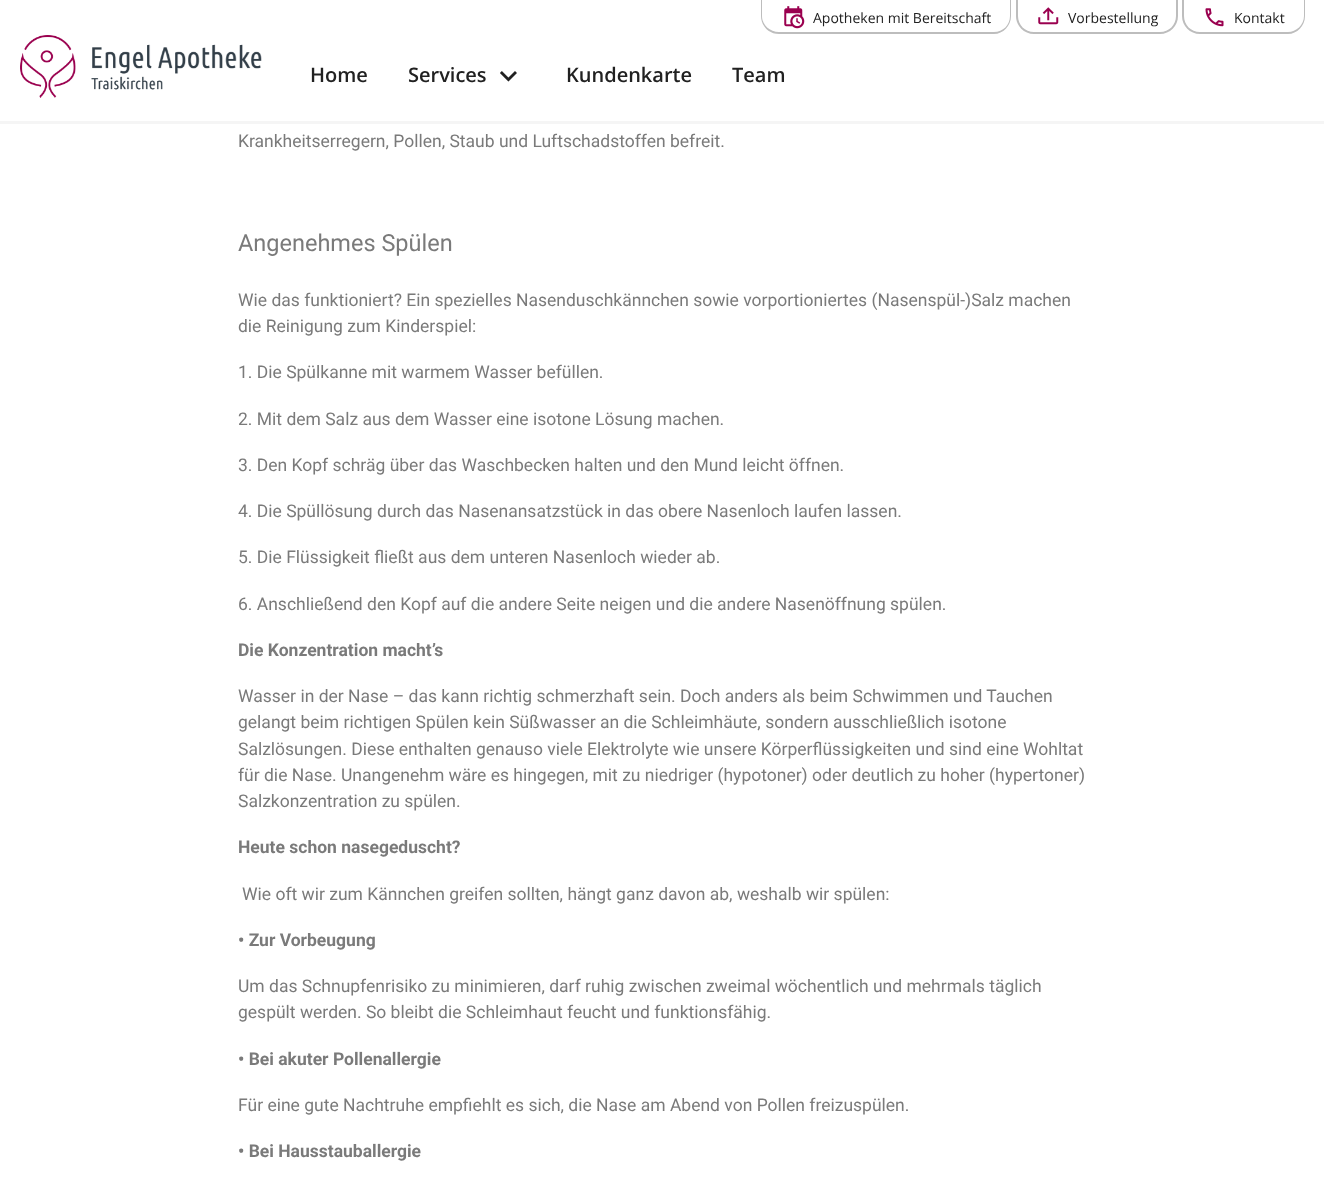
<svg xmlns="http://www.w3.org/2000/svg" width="1324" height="1181">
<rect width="100%" height="100%" fill="#fff"/>
<rect y="121" width="1324" height="3" fill="#f5f5f5"/>
<path d="M761-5h250v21c0 10-8 18-17 18h-215c-10 0-18-8-18-18zm1 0h248v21c0 9-7 16-16 16h-215c-9 0-17-7-17-16z" fill="#bdbdbd" fill-rule="evenodd"/>
<image x="784" y="6" width="21" height="23" href="media/1.png"/>
<text x="813" y="23" style="font-family:Open Sans;font-size:14px;fill:#212121">Apotheken mit Bereitschaft</text>
<path d="M1016-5h162v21c0 10-8 18-18 18h-126c-10 0-18-8-18-18zm2 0h158v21c0 9-7 16-16 16h-126c-9 0-16-7-16-16z" fill="#bdbdbd" fill-rule="evenodd"/>
<image x="1038" y="7" width="21" height="18" href="media/2.png"/>
<text x="1068" y="23" style="font-family:Open Sans;font-size:14px;fill:#212121">Vorbestellung</text>
<path d="M1182-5h123v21c0 10-8 18-17 18h-88c-10 0-18-8-18-18zm2 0h120v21c0 9-8 16-16 16h-88c-9 0-16-7-16-16z" fill="#bdbdbd" fill-rule="evenodd"/>
<image x="1205" y="8" width="19" height="19" href="media/3.png"/>
<text x="1234" y="23" style="font-family:Open Sans;font-size:14px;fill:#212121">Kontakt</text>
<image x="20" y="35" width="242" height="63" href="media/4.png"/>
<text x="310" y="82" style="font-family:Open Sans;font-size:20px;font-weight:600;fill:#212121">Home</text>
<text x="408" y="82" style="font-family:Open Sans;font-size:20px;font-weight:600;fill:#212121">Services</text>
<image x="500" y="71" width="17" height="11" href="media/5.png"/>
<text x="566" y="82" style="font-family:Open Sans;font-size:20px;font-weight:600;fill:#212121">Kundenkarte</text>
<text x="732" y="82" style="font-family:Open Sans;font-size:20px;font-weight:600;fill:#212121">Team</text>
<text x="238" y="147" style="font-family:Roboto;font-size:17.5px;fill:#7a7a7a">Krankheitserregern, Pollen, Staub und Luftschadstoffen befreit.</text>
<text x="238" y="251" style="font-family:Roboto;font-size:23.5px;fill:#7a7a7a">Angenehmes Spülen</text>
<text x="238" y="306" style="font-family:Roboto;font-size:17.5px;fill:#7a7a7a">Wie das funktioniert? Ein spezielles Nasenduschkännchen sowie vorportioniertes (Nasenspül-)Salz machen</text>
<text x="238" y="332" style="font-family:Roboto;font-size:17.5px;fill:#7a7a7a">die Reinigung zum Kinderspiel:</text>
<text x="238" y="378" style="font-family:Roboto;font-size:17.5px;fill:#7a7a7a">1. Die Spülkanne mit warmem Wasser befüllen.</text>
<text x="238" y="425" style="font-family:Roboto;font-size:17.5px;fill:#7a7a7a">2. Mit dem Salz aus dem Wasser eine isotone Lösung machen.</text>
<text x="238" y="471" style="font-family:Roboto;font-size:17.5px;fill:#7a7a7a">3. Den Kopf schräg über das Waschbecken halten und den Mund leicht öffnen.</text>
<text x="238" y="517" style="font-family:Roboto;font-size:17.5px;fill:#7a7a7a">4. Die Spüllösung durch das Nasenansatzstück in das obere Nasenloch laufen lassen.</text>
<text x="238" y="563" style="font-family:Roboto;font-size:17.5px;fill:#7a7a7a">5. Die Flüssigkeit fließt aus dem unteren Nasenloch wieder ab.</text>
<text x="238" y="610" style="font-family:Roboto;font-size:17.5px;fill:#7a7a7a">6. Anschließend den Kopf auf die andere Seite neigen und die andere Nasenöffnung spülen.</text>
<text x="238" y="656" style="font-family:Roboto;font-size:17.5px;font-weight:bold;fill:#7a7a7a">Die Konzentration macht’s</text>
<text x="238" y="702" style="font-family:Roboto;font-size:17.5px;fill:#7a7a7a">Wasser in der Nase – das kann richtig schmerzhaft sein. Doch anders als beim Schwimmen und Tauchen</text>
<text x="238" y="728" style="font-family:Roboto;font-size:17.5px;fill:#7a7a7a">gelangt beim richtigen Spülen kein Süßwasser an die Schleimhäute, sondern ausschließlich isotone</text>
<text x="238" y="755" style="font-family:Roboto;font-size:17.5px;fill:#7a7a7a">Salzlösungen. Diese enthalten genauso viele Elektrolyte wie unsere Körperflüssigkeiten und sind eine Wohltat</text>
<text x="238" y="781" style="font-family:Roboto;font-size:17.5px;fill:#7a7a7a">für die Nase. Unangenehm wäre es hingegen, mit zu niedriger (hypotoner) oder deutlich zu hoher (hypertoner)</text>
<text x="238" y="807" style="font-family:Roboto;font-size:17.5px;fill:#7a7a7a">Salzkonzentration zu spülen.</text>
<text x="238" y="853" style="font-family:Roboto;font-size:17.5px;font-weight:bold;fill:#7a7a7a">Heute schon nasegeduscht?</text>
<text x="242" y="900" style="font-family:Roboto;font-size:17.5px;fill:#7a7a7a">Wie oft wir zum Kännchen greifen sollten, hängt ganz davon ab, weshalb wir spülen:</text>
<text x="238" y="946" style="font-family:Roboto;font-size:17.5px;font-weight:bold;fill:#7a7a7a">• Zur Vorbeugung</text>
<text x="238" y="992" style="font-family:Roboto;font-size:17.5px;fill:#7a7a7a">Um das Schnupfenrisiko zu minimieren, darf ruhig zwischen zweimal wöchentlich und mehrmals täglich</text>
<text x="238" y="1018" style="font-family:Roboto;font-size:17.5px;fill:#7a7a7a">gespült werden. So bleibt die Schleimhaut feucht und funktionsfähig.</text>
<text x="238" y="1065" style="font-family:Roboto;font-size:17.5px;font-weight:bold;fill:#7a7a7a">• Bei akuter Pollenallergie</text>
<text x="238" y="1111" style="font-family:Roboto;font-size:17.5px;fill:#7a7a7a">Für eine gute Nachtruhe empfiehlt es sich, die Nase am Abend von Pollen freizuspülen.</text>
<text x="238" y="1157" style="font-family:Roboto;font-size:17.5px;font-weight:bold;fill:#7a7a7a">• Bei Hausstauballergie</text>
</svg>
